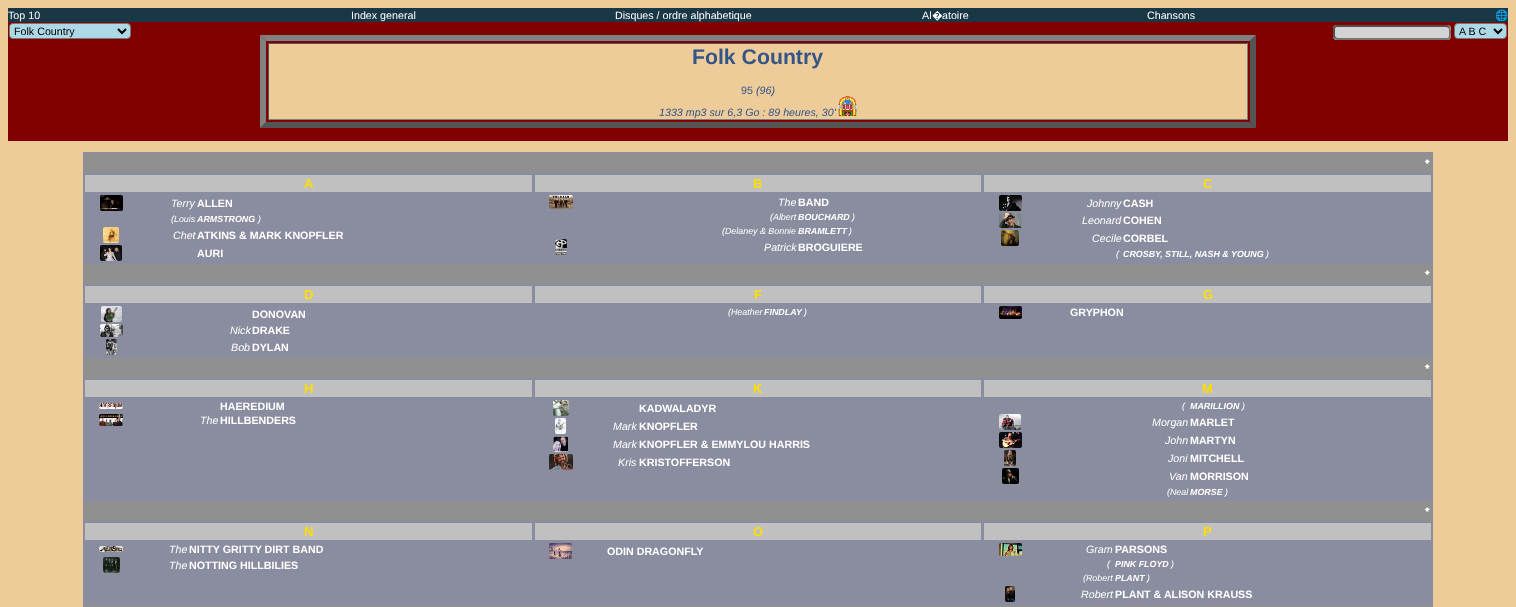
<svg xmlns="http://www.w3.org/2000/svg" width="1516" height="607">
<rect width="100%" height="100%" fill="#ec9"/>
<rect x="8" y="8" width="1500" height="14" fill="#193746"/>
<text x="8" y="19" style="font-family:Liberation Sans;font-size:10.7px;fill:#fff">Top 10</text>
<text x="351" y="19" style="font-family:Liberation Sans;font-size:10.7px;fill:#fff">Index general</text>
<text x="615" y="19" style="font-family:Liberation Sans;font-size:10.7px;fill:#fff">Disques / ordre alphabetique</text>
<text x="922" y="19" style="font-family:Liberation Sans;font-size:10.7px;fill:#fff">Al</text>
<text x="932" y="19" style="font-family:Noto Sans;font-size:10.7px;fill:#fff">�</text>
<text x="942" y="19" style="font-family:Liberation Sans;font-size:10.7px;fill:#fff">atoire</text>
<text x="1147" y="19" style="font-family:Liberation Sans;font-size:10.7px;fill:#fff">Chansons</text>
<text x="1495" y="19" style="font-family:Noto Color Emoji;font-size:10.7px;fill:#fff">🌐</text>
<rect x="8" y="22" width="1500" height="119" fill="#800000"/>
<rect x="9.5" y="23.5" width="121" height="15" rx="3.5" fill="#add8e6" stroke="#767676"/>
<path d="M118 29l4 4l4-4" fill="none" stroke="#000" stroke-width="2"/>
<text x="14" y="35" style="font-family:Liberation Sans;font-size:10.7px;fill:#000">Folk Country</text>
<rect x="1333" y="25" width="118" height="15" rx="4" fill="#d3d3d3"/>
<path d="M1449 27c1.5 1.5 1 4.5 1 6c0 2.5 .5 6-3 6h-110l-2-1" fill="none" stroke="#767676" stroke-width="2"/>
<path d="M1335 38c-1.5-1.5-1-4.5-1-6c0-2.5-.5-6 3-6h110l2 1" fill="none" stroke="#4f4f4f" stroke-width="2"/>
<rect x="1454.5" y="23.5" width="52" height="15" rx="3.5" fill="#add8e6" stroke="#767676"/>
<path d="M1494 29l4 4l4-4" fill="none" stroke="#000" stroke-width="2"/>
<text x="1459" y="35" style="font-family:Liberation Sans;font-size:10.7px;fill:#000">A B C</text>
<path d="M260 35h996l-6 6h-984z" fill="#808080"/>
<path d="M1256 35v93l-6-6v-81z" fill="#555"/>
<path d="M1256 128h-996l6-6h984z" fill="#555"/>
<path d="M260 128v-93l6 6v81z" fill="#808080"/>
<rect x="269" y="44" width="978" height="75" fill="#ec9"/>
<rect x="268" y="43" width="980" height="1" fill="#555"/>
<rect x="1247" y="43" width="1" height="77" fill="#808080"/>
<rect x="268" y="119" width="980" height="1" fill="#808080"/>
<rect x="268" y="43" width="1" height="77" fill="#555"/>
<text x="692" y="64" style="font-family:Liberation Sans;font-size:21.25px;font-weight:bold;fill:#358">Folk Country</text>
<text x="741" y="94" style="font-family:Liberation Sans;font-size:10.7px;fill:#358">95</text>
<text x="756" y="94" style="font-family:Liberation Sans;font-size:10.7px;font-style:italic;fill:#358">(96)</text>
<text x="659" y="116" style="font-family:Liberation Sans;font-size:10.7px;font-style:italic;fill:#358">1333 mp3 sur 6,3 Go : 89 heures, 30'</text>
<image x="838" y="96" width="19" height="20" href="media/1.png"/>
<rect x="83" y="152" width="1350" height="455" fill="#8a8d9f"/>
<rect x="84" y="153" width="1348" height="20" fill="#909090"/>
<text x="1424" y="165" style="font-family:'Noto Sans Symbols 2';font-size:10.7px;fill:#fff">🠹</text>
<rect x="85" y="175" width="447" height="17" fill="#c0c0c0"/>
<text x="304" y="188" style="font-family:Liberation Sans;font-size:13px;font-weight:bold;fill:#fd0">A</text>
<image x="100" y="195" width="23" height="16" href="media/2.png"/>
<text x="171" y="207" style="font-family:Liberation Sans;font-size:10.7px;font-style:italic;fill:#fff">Terry</text>
<text x="197" y="207" style="font-family:Liberation Sans;font-size:10.7px;font-weight:bold;fill:#fff">ALLEN</text>
<text x="171" y="222" style="font-family:Liberation Sans;font-size:8.9px;font-style:italic;fill:#fff">(Louis</text>
<text x="197" y="222" style="font-family:Liberation Sans;font-size:8.9px;font-weight:bold;font-style:italic;fill:#fff">ARMSTRONG</text>
<text x="258" y="222" style="font-family:Liberation Sans;font-size:8.9px;font-style:italic;fill:#fff">)</text>
<image x="103" y="227" width="16" height="16" href="media/3.png"/>
<text x="173" y="239" style="font-family:Liberation Sans;font-size:10.7px;font-style:italic;fill:#fff">Chet</text>
<text x="197" y="239" style="font-family:Liberation Sans;font-size:10.7px;font-weight:bold;fill:#fff">ATKINS &amp; MARK KNOPFLER</text>
<image x="100" y="245" width="22" height="16" href="media/4.png"/>
<text x="197" y="257" style="font-family:Liberation Sans;font-size:10.7px;font-weight:bold;fill:#fff">AURI</text>
<rect x="535" y="175" width="446" height="17" fill="#c0c0c0"/>
<text x="753" y="188" style="font-family:Liberation Sans;font-size:13px;font-weight:bold;fill:#fd0">B</text>
<image x="549" y="195" width="24" height="14" href="media/5.png"/>
<text x="778" y="206" style="font-family:Liberation Sans;font-size:10.7px;font-style:italic;fill:#fff">The</text>
<text x="798" y="206" style="font-family:Liberation Sans;font-size:10.7px;font-weight:bold;fill:#fff">BAND</text>
<text x="770" y="220" style="font-family:Liberation Sans;font-size:8.9px;font-style:italic;fill:#fff">(Albert</text>
<text x="798" y="220" style="font-family:Liberation Sans;font-size:8.9px;font-weight:bold;font-style:italic;fill:#fff">BOUCHARD</text>
<text x="852" y="220" style="font-family:Liberation Sans;font-size:8.9px;font-style:italic;fill:#fff">)</text>
<text x="722" y="234" style="font-family:Liberation Sans;font-size:8.9px;font-style:italic;fill:#fff">(Delaney &amp; Bonnie</text>
<text x="798" y="234" style="font-family:Liberation Sans;font-size:8.9px;font-weight:bold;font-style:italic;fill:#fff">BRAMLETT</text>
<text x="849" y="234" style="font-family:Liberation Sans;font-size:8.9px;font-style:italic;fill:#fff">)</text>
<image x="555" y="239" width="12" height="16" href="media/6.png"/>
<text x="764" y="251" style="font-family:Liberation Sans;font-size:10.7px;font-style:italic;fill:#fff">Patrick</text>
<text x="798" y="251" style="font-family:Liberation Sans;font-size:10.7px;font-weight:bold;fill:#fff">BROGUIERE</text>
<rect x="984" y="175" width="447" height="17" fill="#c0c0c0"/>
<text x="1203" y="188" style="font-family:Liberation Sans;font-size:13px;font-weight:bold;fill:#fd0">C</text>
<image x="999" y="195" width="23" height="16" href="media/7.png"/>
<text x="1087" y="207" style="font-family:Liberation Sans;font-size:10.7px;font-style:italic;fill:#fff">Johnny</text>
<text x="1123" y="207" style="font-family:Liberation Sans;font-size:10.7px;font-weight:bold;fill:#fff">CASH</text>
<image x="999" y="213" width="23" height="15" href="media/8.png"/>
<text x="1082" y="224" style="font-family:Liberation Sans;font-size:10.7px;font-style:italic;fill:#fff">Leonard</text>
<text x="1123" y="224" style="font-family:Liberation Sans;font-size:10.7px;font-weight:bold;fill:#fff">COHEN</text>
<image x="1001" y="230" width="18" height="16" href="media/9.png"/>
<text x="1092" y="242" style="font-family:Liberation Sans;font-size:10.7px;font-style:italic;fill:#fff">Cecile</text>
<text x="1123" y="242" style="font-family:Liberation Sans;font-size:10.7px;font-weight:bold;fill:#fff">CORBEL</text>
<text x="1116" y="257" style="font-family:Liberation Sans;font-size:8.9px;font-style:italic;fill:#fff">(</text>
<text x="1123" y="257" style="font-family:Liberation Sans;font-size:8.9px;font-weight:bold;font-style:italic;fill:#fff">CROSBY, STILL, NASH &amp; YOUNG</text>
<text x="1266" y="257" style="font-family:Liberation Sans;font-size:8.9px;font-style:italic;fill:#fff">)</text>
<rect x="84" y="264" width="1348" height="20" fill="#909090"/>
<text x="1424" y="276" style="font-family:'Noto Sans Symbols 2';font-size:10.7px;fill:#fff">🠹</text>
<rect x="85" y="286" width="447" height="17" fill="#c0c0c0"/>
<text x="304" y="299" style="font-family:Liberation Sans;font-size:13px;font-weight:bold;fill:#fd0">D</text>
<image x="101" y="306" width="21" height="16" href="media/10.png"/>
<text x="252" y="318" style="font-family:Liberation Sans;font-size:10.7px;font-weight:bold;fill:#fff">DONOVAN</text>
<image x="100" y="324" width="23" height="13" href="media/11.png"/>
<text x="230" y="334" style="font-family:Liberation Sans;font-size:10.7px;font-style:italic;fill:#fff">Nick</text>
<text x="252" y="334" style="font-family:Liberation Sans;font-size:10.7px;font-weight:bold;fill:#fff">DRAKE</text>
<image x="106" y="339" width="11" height="16" href="media/12.png"/>
<text x="231" y="351" style="font-family:Liberation Sans;font-size:10.7px;font-style:italic;fill:#fff">Bob</text>
<text x="252" y="351" style="font-family:Liberation Sans;font-size:10.7px;font-weight:bold;fill:#fff">DYLAN</text>
<rect x="535" y="286" width="446" height="17" fill="#c0c0c0"/>
<text x="754" y="299" style="font-family:Liberation Sans;font-size:13px;font-weight:bold;fill:#fd0">F</text>
<text x="728" y="315" style="font-family:Liberation Sans;font-size:8.9px;font-style:italic;fill:#fff">(Heather</text>
<text x="764" y="315" style="font-family:Liberation Sans;font-size:8.9px;font-weight:bold;font-style:italic;fill:#fff">FINDLAY</text>
<text x="804" y="315" style="font-family:Liberation Sans;font-size:8.9px;font-style:italic;fill:#fff">)</text>
<rect x="984" y="286" width="447" height="17" fill="#c0c0c0"/>
<text x="1203" y="299" style="font-family:Liberation Sans;font-size:13px;font-weight:bold;fill:#fd0">G</text>
<image x="999" y="306" width="23" height="13" href="media/13.png"/>
<text x="1070" y="316" style="font-family:Liberation Sans;font-size:10.7px;font-weight:bold;fill:#fff">GRYPHON</text>
<rect x="84" y="358" width="1348" height="20" fill="#909090"/>
<text x="1424" y="370" style="font-family:'Noto Sans Symbols 2';font-size:10.7px;fill:#fff">🠹</text>
<rect x="85" y="380" width="447" height="17" fill="#c0c0c0"/>
<text x="304" y="393" style="font-family:Liberation Sans;font-size:13px;font-weight:bold;fill:#fd0">H</text>
<image x="99" y="403" width="24" height="6" href="media/14.png"/>
<text x="220" y="410" style="font-family:Liberation Sans;font-size:10.7px;font-weight:bold;fill:#fff">HAEREDIUM</text>
<image x="99" y="414" width="24" height="12" href="media/15.png"/>
<text x="200" y="424" style="font-family:Liberation Sans;font-size:10.7px;font-style:italic;fill:#fff">The</text>
<text x="220" y="424" style="font-family:Liberation Sans;font-size:10.7px;font-weight:bold;fill:#fff">HILLBENDERS</text>
<rect x="535" y="380" width="446" height="17" fill="#c0c0c0"/>
<text x="753" y="393" style="font-family:Liberation Sans;font-size:13px;font-weight:bold;fill:#fd0">K</text>
<image x="553" y="400" width="16" height="16" href="media/16.png"/>
<text x="639" y="412" style="font-family:Liberation Sans;font-size:10.7px;font-weight:bold;fill:#fff">KADWALADYR</text>
<image x="555" y="418" width="11" height="16" href="media/17.png"/>
<text x="613" y="430" style="font-family:Liberation Sans;font-size:10.7px;font-style:italic;fill:#fff">Mark</text>
<text x="639" y="430" style="font-family:Liberation Sans;font-size:10.7px;font-weight:bold;fill:#fff">KNOPFLER</text>
<image x="553" y="436" width="15" height="16" href="media/18.png"/>
<text x="613" y="448" style="font-family:Liberation Sans;font-size:10.7px;font-style:italic;fill:#fff">Mark</text>
<text x="639" y="448" style="font-family:Liberation Sans;font-size:10.7px;font-weight:bold;fill:#fff">KNOPFLER &amp; EMMYLOU HARRIS</text>
<image x="549" y="454" width="24" height="16" href="media/19.png"/>
<text x="618" y="466" style="font-family:Liberation Sans;font-size:10.7px;font-style:italic;fill:#fff">Kris</text>
<text x="639" y="466" style="font-family:Liberation Sans;font-size:10.7px;font-weight:bold;fill:#fff">KRISTOFFERSON</text>
<rect x="984" y="380" width="447" height="17" fill="#c0c0c0"/>
<text x="1202" y="393" style="font-family:Liberation Sans;font-size:13px;font-weight:bold;fill:#fd0">M</text>
<text x="1182" y="409" style="font-family:Liberation Sans;font-size:8.9px;font-style:italic;fill:#fff">(</text>
<text x="1190" y="409" style="font-family:Liberation Sans;font-size:8.9px;font-weight:bold;font-style:italic;fill:#fff">MARILLION</text>
<text x="1242" y="409" style="font-family:Liberation Sans;font-size:8.9px;font-style:italic;fill:#fff">)</text>
<image x="999" y="414" width="22" height="16" href="media/20.png"/>
<text x="1152" y="426" style="font-family:Liberation Sans;font-size:10.7px;font-style:italic;fill:#fff">Morgan</text>
<text x="1190" y="426" style="font-family:Liberation Sans;font-size:10.7px;font-weight:bold;fill:#fff">MARLET</text>
<image x="999" y="432" width="23" height="16" href="media/21.png"/>
<text x="1165" y="444" style="font-family:Liberation Sans;font-size:10.7px;font-style:italic;fill:#fff">John</text>
<text x="1190" y="444" style="font-family:Liberation Sans;font-size:10.7px;font-weight:bold;fill:#fff">MARTYN</text>
<image x="1004" y="450" width="12" height="16" href="media/22.png"/>
<text x="1168" y="462" style="font-family:Liberation Sans;font-size:10.7px;font-style:italic;fill:#fff">Joni</text>
<text x="1190" y="462" style="font-family:Liberation Sans;font-size:10.7px;font-weight:bold;fill:#fff">MITCHELL</text>
<image x="1002" y="468" width="17" height="16" href="media/23.png"/>
<text x="1169" y="480" style="font-family:Liberation Sans;font-size:10.7px;font-style:italic;fill:#fff">Van</text>
<text x="1190" y="480" style="font-family:Liberation Sans;font-size:10.7px;font-weight:bold;fill:#fff">MORRISON</text>
<text x="1167" y="495" style="font-family:Liberation Sans;font-size:8.9px;font-style:italic;fill:#fff">(Neal</text>
<text x="1190" y="495" style="font-family:Liberation Sans;font-size:8.9px;font-weight:bold;font-style:italic;fill:#fff">MORSE</text>
<text x="1225" y="495" style="font-family:Liberation Sans;font-size:8.9px;font-style:italic;fill:#fff">)</text>
<rect x="84" y="501" width="1348" height="20" fill="#909090"/>
<text x="1424" y="513" style="font-family:'Noto Sans Symbols 2';font-size:10.7px;fill:#fff">🠹</text>
<rect x="85" y="523" width="447" height="17" fill="#c0c0c0"/>
<text x="304" y="536" style="font-family:Liberation Sans;font-size:13px;font-weight:bold;fill:#fd0">N</text>
<image x="99" y="546" width="24" height="6" href="media/24.png"/>
<text x="169" y="553" style="font-family:Liberation Sans;font-size:10.7px;font-style:italic;fill:#fff">The</text>
<text x="189" y="553" style="font-family:Liberation Sans;font-size:10.7px;font-weight:bold;fill:#fff">NITTY GRITTY DIRT BAND</text>
<image x="103" y="557" width="17" height="16" href="media/25.png"/>
<text x="169" y="569" style="font-family:Liberation Sans;font-size:10.7px;font-style:italic;fill:#fff">The</text>
<text x="189" y="569" style="font-family:Liberation Sans;font-size:10.7px;font-weight:bold;fill:#fff">NOTTING HILLBILIES</text>
<rect x="535" y="523" width="446" height="17" fill="#c0c0c0"/>
<text x="753" y="536" style="font-family:Liberation Sans;font-size:13px;font-weight:bold;fill:#fd0">O</text>
<image x="549" y="543" width="23" height="16" href="media/26.png"/>
<text x="607" y="555" style="font-family:Liberation Sans;font-size:10.7px;font-weight:bold;fill:#fff">ODIN DRAGONFLY</text>
<rect x="984" y="523" width="447" height="17" fill="#c0c0c0"/>
<text x="1203" y="536" style="font-family:Liberation Sans;font-size:13px;font-weight:bold;fill:#fd0">P</text>
<image x="999" y="543" width="23" height="13" href="media/27.png"/>
<text x="1086" y="553" style="font-family:Liberation Sans;font-size:10.7px;font-style:italic;fill:#fff">Gram</text>
<text x="1115" y="553" style="font-family:Liberation Sans;font-size:10.7px;font-weight:bold;fill:#fff">PARSONS</text>
<text x="1107" y="567" style="font-family:Liberation Sans;font-size:8.9px;font-style:italic;fill:#fff">(</text>
<text x="1115" y="567" style="font-family:Liberation Sans;font-size:8.9px;font-weight:bold;font-style:italic;fill:#fff">PINK FLOYD</text>
<text x="1171" y="567" style="font-family:Liberation Sans;font-size:8.9px;font-style:italic;fill:#fff">)</text>
<text x="1083" y="581" style="font-family:Liberation Sans;font-size:8.9px;font-style:italic;fill:#fff">(Robert</text>
<text x="1115" y="581" style="font-family:Liberation Sans;font-size:8.9px;font-weight:bold;font-style:italic;fill:#fff">PLANT</text>
<text x="1147" y="581" style="font-family:Liberation Sans;font-size:8.9px;font-style:italic;fill:#fff">)</text>
<image x="1005" y="586" width="10" height="16" href="media/28.png"/>
<text x="1081" y="598" style="font-family:Liberation Sans;font-size:10.7px;font-style:italic;fill:#fff">Robert</text>
<text x="1115" y="598" style="font-family:Liberation Sans;font-size:10.7px;font-weight:bold;fill:#fff">PLANT &amp; ALISON KRAUSS</text>
<rect x="84" y="605" width="1348" height="2" fill="#909090"/>
</svg>
